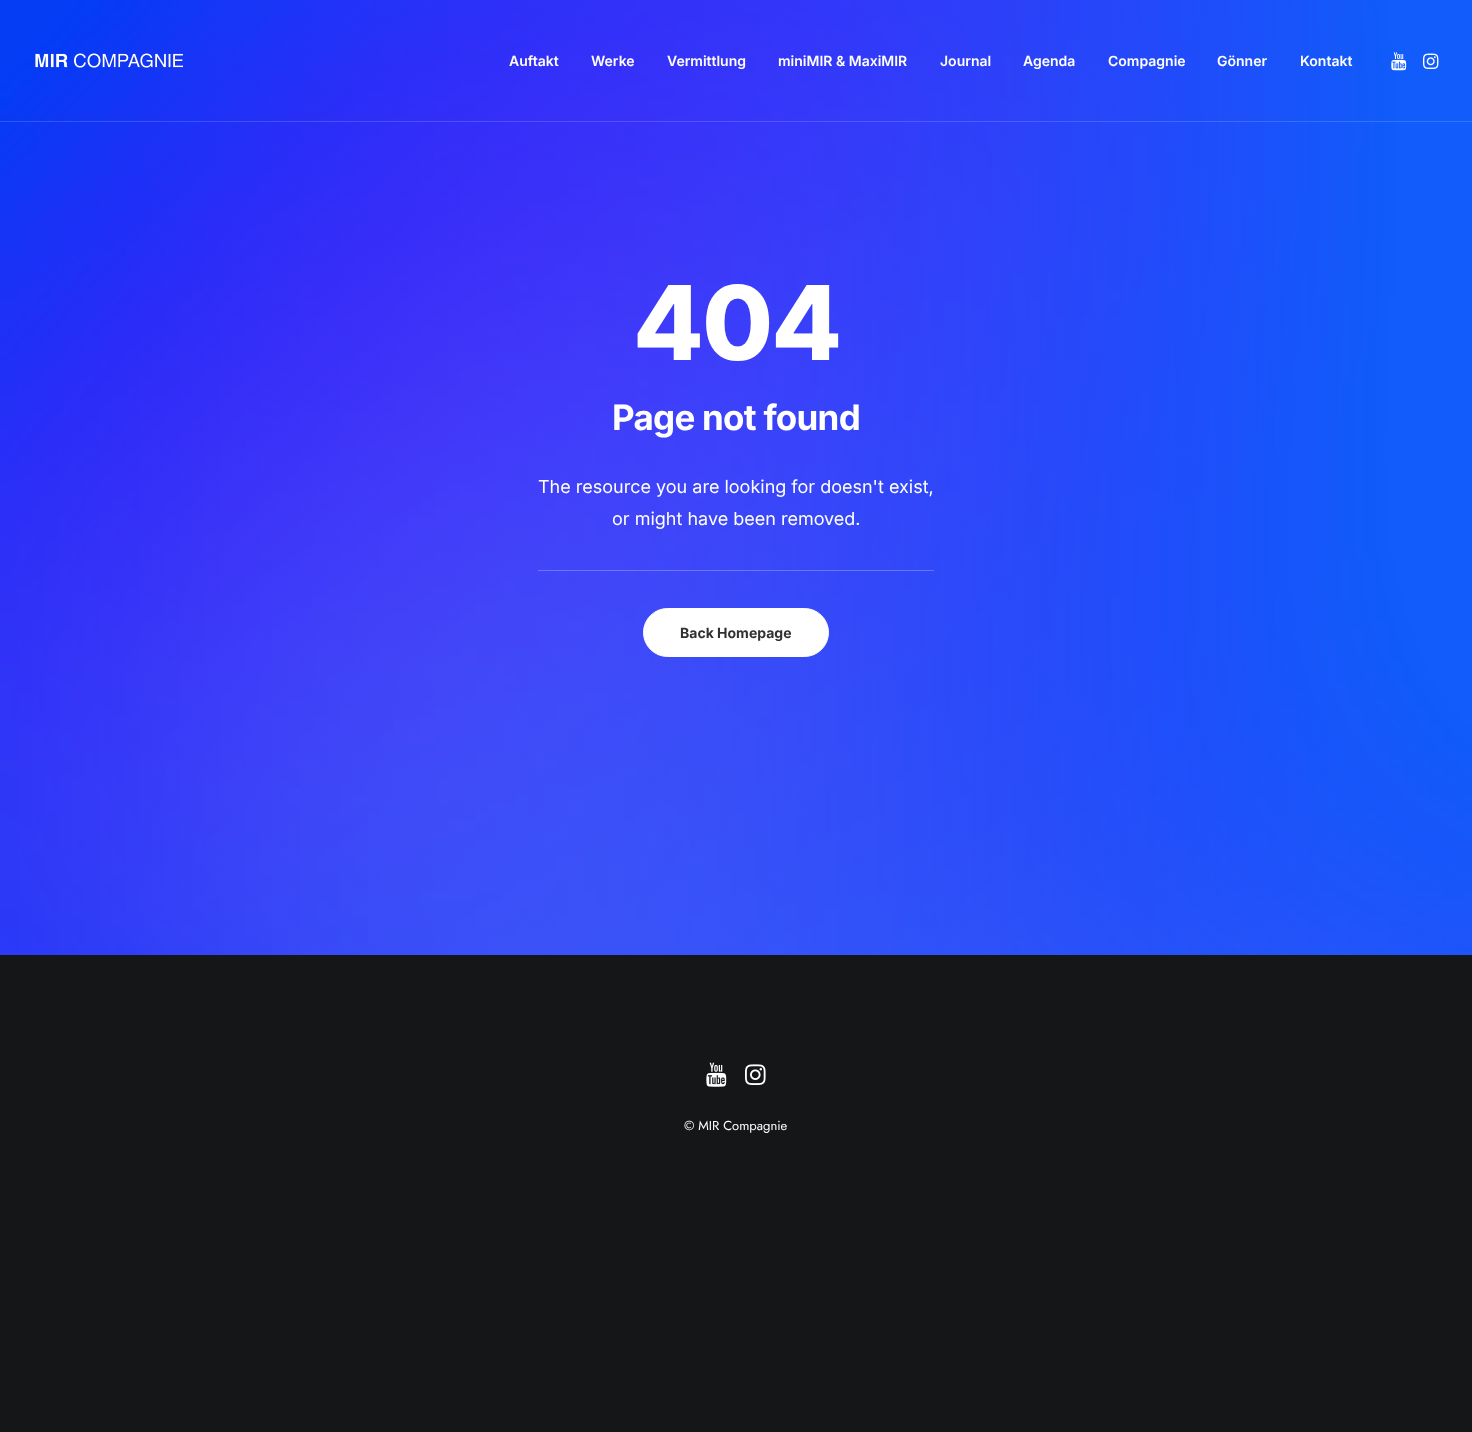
<svg xmlns="http://www.w3.org/2000/svg" width="1472" height="1432">
<defs>
<linearGradient id="g1" gradientUnits="userSpaceOnUse" x1="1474" y1="478" x2="-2" y2="477"><stop offset="0.09" stop-color="#115cfa"/><stop offset="0.91" stop-color="#053df5"/></linearGradient>
</defs>
<rect width="100%" height="100%" fill="#141618"/>
<rect width="1472" height="955" fill="url(#g1)"/>
<image x="0" y="0" width="1472" height="955" href="media/4.png"/>
<image x="35" y="53" width="149" height="15" href="media/1.png"/>
<text x="509" y="66" style="font-family:Inter;font-size:14px;font-weight:600;fill:#fff">Auftakt</text>
<text x="591" y="66" style="font-family:Inter;font-size:14px;font-weight:600;fill:#fff">Werke</text>
<text x="667" y="66" style="font-family:Inter;font-size:14px;font-weight:600;fill:#fff">Vermittlung</text>
<text x="778" y="66" style="font-family:Inter;font-size:14px;font-weight:600;fill:#fff">miniMIR &amp; MaxiMIR</text>
<text x="940" y="66" style="font-family:Inter;font-size:14px;font-weight:600;fill:#fff">Journal</text>
<text x="1023" y="66" style="font-family:Inter;font-size:14px;font-weight:600;fill:#fff">Agenda</text>
<text x="1108" y="66" style="font-family:Inter;font-size:14px;font-weight:600;fill:#fff">Compagnie</text>
<text x="1217" y="66" style="font-family:Inter;font-size:14px;font-weight:600;fill:#fff">Gönner</text>
<text x="1300" y="66" style="font-family:Inter;font-size:14px;font-weight:600;fill:#fff">Kontakt</text>
<image x="1391" y="52" width="16" height="19" href="media/2.png"/>
<image x="1423" y="53" width="16" height="16" href="media/3.png"/>
<rect y="121" width="1472" height="1" fill="#ffffff26"/>
<text x="633" y="360" style="font-family:Inter;font-size:103px;font-weight:800;letter-spacing:-2px;fill:#fff">404</text>
<text x="612" y="430" style="font-family:Inter;font-size:35px;font-weight:bold;letter-spacing:-0.75px;fill:#fff">Page not found</text>
<text x="538" y="493" style="font-family:Inter;font-size:18px;fill:#fff">The resource you are looking for doesn't exist,</text>
<text x="612" y="525" style="font-family:Inter;font-size:18px;fill:#fff">or might have been removed.</text>
<rect x="538" y="570" width="396" height="1" fill="#ffffff40"/>
<rect x="643.5" y="608.5" width="185" height="48" rx="24" fill="#fff" stroke="#fff"/>
<text x="680" y="638" style="font-family:Inter;font-size:14px;font-weight:bold;fill:#303133">Back Homepage</text>
<image x="706" y="1062" width="21" height="25" href="media/5.png"/>
<image x="745" y="1064" width="21" height="21" href="media/6.png"/>
<text x="684" y="1130" style="font-family:Jost;font-size:13px;fill:#fff">© MIR Compagnie</text>
</svg>
